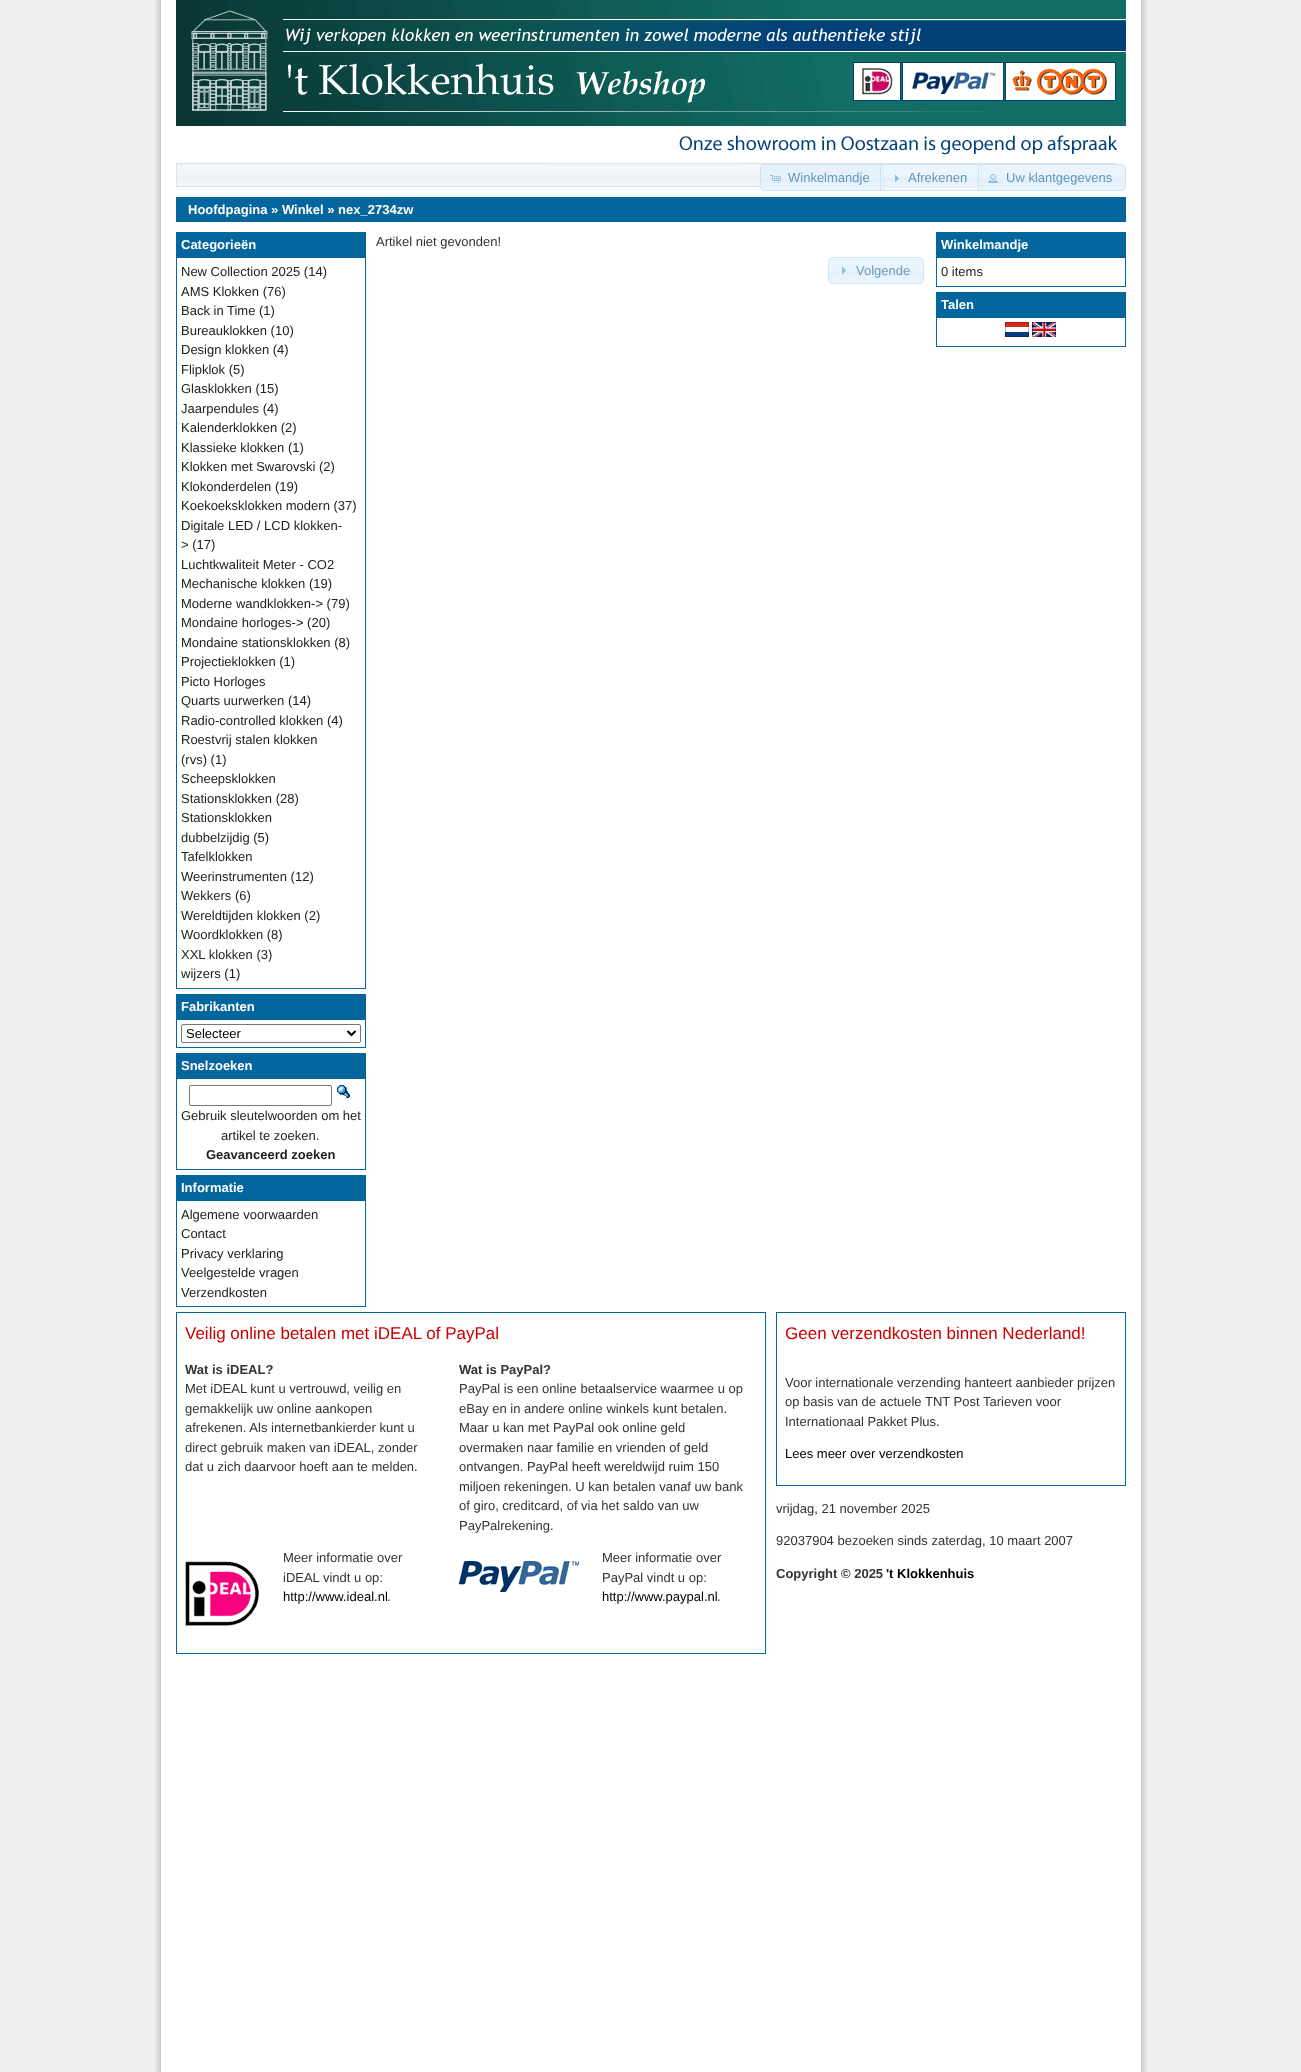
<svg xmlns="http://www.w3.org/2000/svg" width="1301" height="2072">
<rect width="100%" height="100%" fill="#eee"/>
<image x="155" y="0" width="992" height="2072" href="media/1.png"/>
<image x="176" y="0" width="950" height="187" href="media/2.png"/>
<path d="M765 164h119v27h-119c-3 0-5-2-5-5v-17c0-3 2-5 5-5z" fill="#dfeffcb3"/>
<image x="760" y="175" width="124" height="12" href="media/3.png"/>
<path d="M765 164.5h118.5v26h-118.5c-2.5 0-4.5-2-4.5-4.5v-17c0-2.5 2-4.5 4.5-4.5z" fill="none" stroke="#c5dbecb3"/>
<image x="770" y="175" width="11" height="8" href="media/4.png"/>
<text x="788" y="182" style="font-family:Liberation Sans;font-size:13px;fill:#6595ba">Winkelmandje</text>
<image x="880" y="164" width="102" height="27" href="media/5.png"/>
<rect x="880.5" y="164.5" width="101" height="26" fill="none" stroke="#c5dbecb3"/>
<image x="895" y="175" width="4" height="7" href="media/6.png"/>
<text x="908" y="182" style="font-family:Liberation Sans;font-size:13px;fill:#6595ba">Afrekenen</text>
<path d="M978 164h143c3 0 5 2 5 5v17c0 3-2 5-5 5h-143z" fill="#dfeffcb3"/>
<image x="978" y="164" width="148" height="27" href="media/7.png"/>
<path d="M978.5 164.5h142.5c2.5 0 4.5 2 4.5 4.5v17c0 2.5-2 4.5-4.5 4.5h-142.5z" fill="none" stroke="#c5dbecb3"/>
<image x="988" y="174" width="10" height="9" href="media/8.png"/>
<text x="1006" y="182" style="font-family:Liberation Sans;font-size:13px;fill:#6595ba">Uw klantgegevens</text>
<rect x="176" y="197" width="950" height="25" fill="#04669c"/>
<text x="188" y="214" style="font-family:Liberation Sans;font-size:13px;font-weight:bold;fill:#fff">Hoofdpagina » Winkel » nex_2734zw</text>
<rect x="176" y="232" width="190" height="25" fill="#04669c"/>
<text x="181" y="249" style="font-family:Liberation Sans;font-size:13px;font-weight:bold;fill:#fff">Categorieën</text>
<rect x="176.5" y="257.5" width="189" height="731" fill="none" stroke="#04669c"/>
<text x="181" y="276" style="font-family:Liberation Sans;font-size:13px;fill:#222">New Collection 2025 (14)</text>
<text x="181" y="296" style="font-family:Liberation Sans;font-size:13px;fill:#222">AMS Klokken (76)</text>
<text x="181" y="315" style="font-family:Liberation Sans;font-size:13px;fill:#222">Back in Time (1)</text>
<text x="181" y="335" style="font-family:Liberation Sans;font-size:13px;fill:#222">Bureauklokken (10)</text>
<text x="181" y="354" style="font-family:Liberation Sans;font-size:13px;fill:#222">Design klokken (4)</text>
<text x="181" y="374" style="font-family:Liberation Sans;font-size:13px;fill:#222">Flipklok (5)</text>
<text x="181" y="393" style="font-family:Liberation Sans;font-size:13px;fill:#222">Glasklokken (15)</text>
<text x="181" y="413" style="font-family:Liberation Sans;font-size:13px;fill:#222">Jaarpendules (4)</text>
<text x="181" y="432" style="font-family:Liberation Sans;font-size:13px;fill:#222">Kalenderklokken (2)</text>
<text x="181" y="452" style="font-family:Liberation Sans;font-size:13px;fill:#222">Klassieke klokken (1)</text>
<text x="181" y="471" style="font-family:Liberation Sans;font-size:13px;fill:#222">Klokken met Swarovski (2)</text>
<text x="181" y="491" style="font-family:Liberation Sans;font-size:13px;fill:#222">Klokonderdelen (19)</text>
<text x="181" y="510" style="font-family:Liberation Sans;font-size:13px;fill:#222">Koekoeksklokken modern (37)</text>
<text x="181" y="530" style="font-family:Liberation Sans;font-size:13px;fill:#222">Digitale LED / LCD klokken-</text>
<text x="181" y="549" style="font-family:Liberation Sans;font-size:13px;fill:#222">&gt; (17)</text>
<text x="181" y="569" style="font-family:Liberation Sans;font-size:13px;fill:#222">Luchtkwaliteit Meter - CO2</text>
<text x="181" y="588" style="font-family:Liberation Sans;font-size:13px;fill:#222">Mechanische klokken (19)</text>
<text x="181" y="608" style="font-family:Liberation Sans;font-size:13px;fill:#222">Moderne wandklokken-&gt; (79)</text>
<text x="181" y="627" style="font-family:Liberation Sans;font-size:13px;fill:#222">Mondaine horloges-&gt; (20)</text>
<text x="181" y="647" style="font-family:Liberation Sans;font-size:13px;fill:#222">Mondaine stationsklokken (8)</text>
<text x="181" y="666" style="font-family:Liberation Sans;font-size:13px;fill:#222">Projectieklokken (1)</text>
<text x="181" y="686" style="font-family:Liberation Sans;font-size:13px;fill:#222">Picto Horloges</text>
<text x="181" y="705" style="font-family:Liberation Sans;font-size:13px;fill:#222">Quarts uurwerken (14)</text>
<text x="181" y="725" style="font-family:Liberation Sans;font-size:13px;fill:#222">Radio-controlled klokken (4)</text>
<text x="181" y="744" style="font-family:Liberation Sans;font-size:13px;fill:#222">Roestvrij stalen klokken</text>
<text x="181" y="764" style="font-family:Liberation Sans;font-size:13px;fill:#222">(rvs) (1)</text>
<text x="181" y="783" style="font-family:Liberation Sans;font-size:13px;fill:#222">Scheepsklokken</text>
<text x="181" y="803" style="font-family:Liberation Sans;font-size:13px;fill:#222">Stationsklokken (28)</text>
<text x="181" y="822" style="font-family:Liberation Sans;font-size:13px;fill:#222">Stationsklokken</text>
<text x="181" y="842" style="font-family:Liberation Sans;font-size:13px;fill:#222">dubbelzijdig (5)</text>
<text x="181" y="861" style="font-family:Liberation Sans;font-size:13px;fill:#222">Tafelklokken</text>
<text x="181" y="881" style="font-family:Liberation Sans;font-size:13px;fill:#222">Weerinstrumenten (12)</text>
<text x="181" y="900" style="font-family:Liberation Sans;font-size:13px;fill:#222">Wekkers (6)</text>
<text x="181" y="920" style="font-family:Liberation Sans;font-size:13px;fill:#222">Wereldtijden klokken (2)</text>
<text x="181" y="939" style="font-family:Liberation Sans;font-size:13px;fill:#222">Woordklokken (8)</text>
<text x="181" y="959" style="font-family:Liberation Sans;font-size:13px;fill:#222">XXL klokken (3)</text>
<text x="181" y="978" style="font-family:Liberation Sans;font-size:13px;fill:#222">wijzers (1)</text>
<rect x="176" y="994" width="190" height="25" fill="#04669c"/>
<text x="181" y="1011" style="font-family:Liberation Sans;font-size:13px;font-weight:bold;fill:#fff">Fabrikanten</text>
<rect x="176.5" y="1019.5" width="189" height="28" fill="none" stroke="#04669c"/>
<rect x="181.5" y="1024.5" width="179" height="18" rx="1.5" fill="none" stroke="#767676"/>
<path d="M347.5 1031l4 4l4-4" fill="none" stroke="#000" stroke-width="2"/>
<text x="186" y="1038" style="font-family:Liberation Sans;font-size:13px;fill:#000">Selecteer</text>
<rect x="176" y="1053" width="190" height="25" fill="#04669c"/>
<text x="181" y="1070" style="font-family:Liberation Sans;font-size:13px;font-weight:bold;fill:#fff">Snelzoeken</text>
<rect x="176.5" y="1078.5" width="189" height="91" fill="none" stroke="#04669c"/>
<rect x="189.5" y="1085.5" width="142" height="20" rx="1.5" fill="none" stroke="#767676"/>
<image x="337" y="1085" width="13" height="13" href="media/9.png"/>
<text x="181" y="1120" style="font-family:Liberation Sans;font-size:13px;fill:#222">Gebruik sleutelwoorden om het</text>
<text x="221" y="1140" style="font-family:Liberation Sans;font-size:13px;fill:#222">artikel te zoeken.</text>
<text x="206" y="1159" style="font-family:Liberation Sans;font-size:13px;font-weight:bold;fill:#222">Geavanceerd zoeken</text>
<rect x="176" y="1175" width="190" height="25" fill="#04669c"/>
<text x="181" y="1192" style="font-family:Liberation Sans;font-size:13px;font-weight:bold;fill:#fff">Informatie</text>
<rect x="176.5" y="1200.5" width="189" height="106" fill="none" stroke="#04669c"/>
<text x="181" y="1219" style="font-family:Liberation Sans;font-size:13px;fill:#222">Algemene voorwaarden</text>
<text x="181" y="1238" style="font-family:Liberation Sans;font-size:13px;fill:#222">Contact</text>
<text x="181" y="1258" style="font-family:Liberation Sans;font-size:13px;fill:#222">Privacy verklaring</text>
<text x="181" y="1277" style="font-family:Liberation Sans;font-size:13px;fill:#222">Veelgestelde vragen</text>
<text x="181" y="1297" style="font-family:Liberation Sans;font-size:13px;fill:#222">Verzendkosten</text>
<text x="376" y="246" style="font-family:Liberation Sans;font-size:13px;fill:#333">Artikel niet gevonden!</text>
<rect x="828" y="257" width="96" height="27" rx="5" fill="#e9f4fd"/>
<rect x="828" y="271" width="96" height="5" fill="#e3f1fc"/>
<rect x="828.5" y="257.5" width="95" height="26" rx="4.5" fill="none" stroke="#d6e6f2"/>
<image x="842" y="267" width="4" height="7" href="media/10.png"/>
<text x="856" y="275" style="font-family:Liberation Sans;font-size:13px;fill:#6d9abb">Volgende</text>
<rect x="936" y="232" width="190" height="25" fill="#04669c"/>
<text x="941" y="249" style="font-family:Liberation Sans;font-size:13px;font-weight:bold;fill:#fff">Winkelmandje</text>
<rect x="936.5" y="257.5" width="189" height="29" fill="none" stroke="#04669c"/>
<text x="941" y="276" style="font-family:Liberation Sans;font-size:13px;fill:#222">0 items</text>
<rect x="936" y="292" width="190" height="25" fill="#04669c"/>
<text x="941" y="309" style="font-family:Liberation Sans;font-size:13px;font-weight:bold;fill:#fff">Talen</text>
<rect x="936.5" y="317.5" width="189" height="29" fill="none" stroke="#04669c"/>
<image x="1005" y="322" width="24" height="15" href="media/11.png"/>
<image x="1032" y="322" width="24" height="15" href="media/12.png"/>
<rect x="176.5" y="1312.5" width="589" height="341" fill="none" stroke="#04669c"/>
<text x="185" y="1339" style="font-family:Liberation Sans;font-size:17px;fill:#c00">Veilig online betalen met iDEAL of PayPal</text>
<text x="185" y="1374" style="font-family:Liberation Sans;font-size:13px;font-weight:bold;fill:#333">Wat is iDEAL?</text>
<text x="185" y="1393" style="font-family:Liberation Sans;font-size:13px;fill:#333">Met iDEAL kunt u vertrouwd, veilig en</text>
<text x="185" y="1413" style="font-family:Liberation Sans;font-size:13px;fill:#333">gemakkelijk uw online aankopen</text>
<text x="185" y="1432" style="font-family:Liberation Sans;font-size:13px;fill:#333">afrekenen. Als internetbankierder kunt u</text>
<text x="185" y="1452" style="font-family:Liberation Sans;font-size:13px;fill:#333">direct gebruik maken van iDEAL, zonder</text>
<text x="185" y="1471" style="font-family:Liberation Sans;font-size:13px;fill:#333">dat u zich daarvoor hoeft aan te melden.</text>
<text x="459" y="1374" style="font-family:Liberation Sans;font-size:13px;font-weight:bold;fill:#333">Wat is PayPal?</text>
<text x="459" y="1393" style="font-family:Liberation Sans;font-size:13px;fill:#333">PayPal is een online betaalservice waarmee u op</text>
<text x="459" y="1413" style="font-family:Liberation Sans;font-size:13px;fill:#333">eBay en in andere online winkels kunt betalen.</text>
<text x="459" y="1432" style="font-family:Liberation Sans;font-size:13px;fill:#333">Maar u kan met PayPal ook online geld</text>
<text x="459" y="1452" style="font-family:Liberation Sans;font-size:13px;fill:#333">overmaken naar familie en vrienden of geld</text>
<text x="459" y="1471" style="font-family:Liberation Sans;font-size:13px;fill:#333">ontvangen. PayPal heeft wereldwijd ruim 150</text>
<text x="459" y="1491" style="font-family:Liberation Sans;font-size:13px;fill:#333">miljoen rekeningen. U kan betalen vanaf uw bank</text>
<text x="459" y="1510" style="font-family:Liberation Sans;font-size:13px;fill:#333">of giro, creditcard, of via het saldo van uw</text>
<text x="459" y="1530" style="font-family:Liberation Sans;font-size:13px;fill:#333">PayPalrekening.</text>
<image x="185" y="1561" width="75" height="65" href="media/13.png"/>
<text x="283" y="1562" style="font-family:Liberation Sans;font-size:13px;fill:#333">Meer informatie over</text>
<text x="283" y="1582" style="font-family:Liberation Sans;font-size:13px;fill:#333">iDEAL vindt u op:</text>
<text x="283" y="1601" style="font-family:Liberation Sans;font-size:13px;fill:#000">http://www.ideal.nl</text>
<text x="387" y="1601" style="font-family:Liberation Sans;font-size:13px;fill:#333">.</text>
<image x="459" y="1561" width="120" height="31" href="media/14.png"/>
<text x="602" y="1562" style="font-family:Liberation Sans;font-size:13px;fill:#333">Meer informatie over</text>
<text x="602" y="1582" style="font-family:Liberation Sans;font-size:13px;fill:#333">PayPal vindt u op:</text>
<text x="602" y="1601" style="font-family:Liberation Sans;font-size:13px;fill:#000">http://www.paypal.nl</text>
<text x="717" y="1601" style="font-family:Liberation Sans;font-size:13px;fill:#333">.</text>
<rect x="776.5" y="1312.5" width="349" height="173" fill="none" stroke="#04669c"/>
<text x="785" y="1339" style="font-family:Liberation Sans;font-size:17px;fill:#c00">Geen verzendkosten binnen Nederland!</text>
<text x="785" y="1387" style="font-family:Liberation Sans;font-size:13px;fill:#333">Voor internationale verzending hanteert aanbieder prijzen</text>
<text x="785" y="1406" style="font-family:Liberation Sans;font-size:13px;fill:#333">op basis van de actuele TNT Post Tarieven voor</text>
<text x="785" y="1426" style="font-family:Liberation Sans;font-size:13px;fill:#333">Internationaal Pakket Plus.</text>
<text x="785" y="1458" style="font-family:Liberation Sans;font-size:13px;fill:#000">Lees meer over verzendkosten</text>
<text x="776" y="1513" style="font-family:Liberation Sans;font-size:13px;fill:#333">vrijdag, 21 november 2025</text>
<text x="776" y="1545" style="font-family:Liberation Sans;font-size:13px;fill:#333">92037904 bezoeken sinds zaterdag, 10 maart 2007</text>
<text x="776" y="1578" style="font-family:Liberation Sans;font-size:13px;font-weight:bold;fill:#333">Copyright © 2025</text>
<text x="886" y="1578" style="font-family:Liberation Sans;font-size:13px;font-weight:bold;fill:#000">'t Klokkenhuis</text>
</svg>
